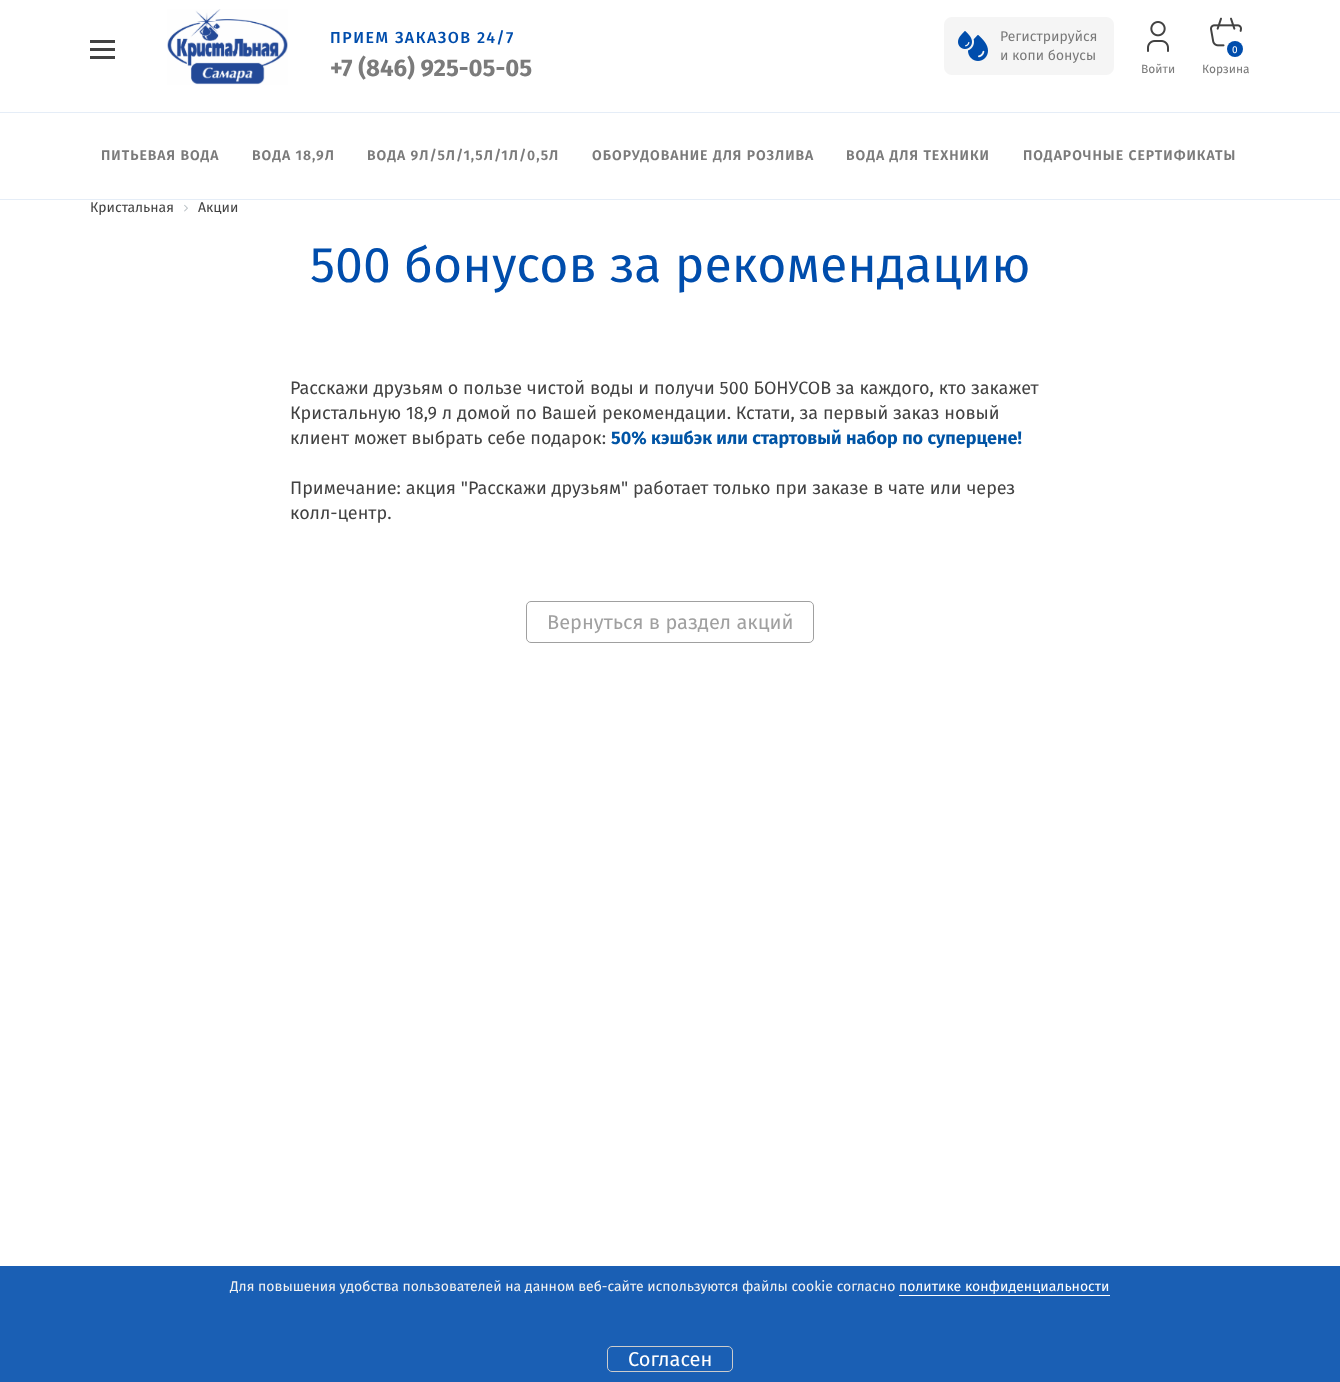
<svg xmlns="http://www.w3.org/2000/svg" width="1340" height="1382">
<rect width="100%" height="100%" fill="#fff"/>
<rect x="90" y="40" width="25" height="3" fill="#424242"/>
<rect x="90" y="48" width="25" height="3" fill="#424242"/>
<rect x="90" y="56" width="25" height="3" fill="#424242"/>
<image x="167" y="9" width="121" height="76" href="media/1.png"/>
<text x="330" y="43" style="font-family:Fira Sans;font-size:16px;font-weight:500;letter-spacing:1.5px;fill:#004dac">ПРИЕМ ЗАКАЗОВ 24/7</text>
<text x="330" y="76" style="font-family:Fira Sans;font-size:24px;font-weight:bold;fill:#7b7b7b">+7 (846) 925-05-05</text>
<image x="944" y="17" width="170" height="58" href="media/2.png"/>
<image x="1147" y="21" width="22" height="31" href="media/3.png"/>
<text x="1141" y="73" style="font-family:Fira Sans;font-size:12px;fill:#7b7b7b">Войти</text>
<image x="1210" y="17" width="32" height="30" href="media/4.png"/>
<circle cx="1235" cy="49" r="8" fill="#004dac"/>
<text x="1232" y="53" style="font-family:Fira Sans;font-size:10px;fill:#fff">0</text>
<text x="1202" y="73" style="font-family:Fira Sans;font-size:12px;fill:#7b7b7b">Корзина</text>
<rect y="112" width="1340" height="1" fill="#e5edf7"/>
<rect y="199" width="1340" height="1" fill="#e5edf7"/>
<text x="101" y="160" style="font-family:Fira Sans;font-size:14px;font-weight:600;letter-spacing:1px;fill:#7b7b7b">ПИТЬЕВАЯ ВОДА</text>
<text x="252" y="160" style="font-family:Fira Sans;font-size:14px;font-weight:600;letter-spacing:1px;fill:#7b7b7b">ВОДА 18,9Л</text>
<text x="367" y="160" style="font-family:Fira Sans;font-size:14px;font-weight:600;letter-spacing:1px;fill:#7b7b7b">ВОДА 9Л/5Л/1,5Л/1Л/0,5Л</text>
<text x="592" y="160" style="font-family:Fira Sans;font-size:14px;font-weight:600;letter-spacing:1px;fill:#7b7b7b">ОБОРУДОВАНИЕ ДЛЯ РОЗЛИВА</text>
<text x="846" y="160" style="font-family:Fira Sans;font-size:14px;font-weight:600;letter-spacing:1px;fill:#7b7b7b">ВОДА ДЛЯ ТЕХНИКИ</text>
<text x="1023" y="160" style="font-family:Fira Sans;font-size:14px;font-weight:600;letter-spacing:1px;fill:#7b7b7b">ПОДАРОЧНЫЕ СЕРТИФИКАТЫ</text>
<text x="90" y="212" style="font-family:Fira Sans;font-size:14px;fill:#424242">Кристальная</text>
<image x="184" y="204" width="4" height="8" href="media/5.png"/>
<text x="198" y="212" style="font-family:Fira Sans;font-size:14px;fill:#424242">Акции</text>
<text x="310" y="282" style="font-family:Fira Sans;font-size:50px;fill:#004dac">500 бонусов за рекомендацию</text>
<text x="290" y="394" style="font-family:Fira Sans;font-size:18px;fill:#424242">Расскажи друзьям о пользе чистой воды и получи 500 БОНУСОВ за каждого, кто закажет</text>
<text x="290" y="419" style="font-family:Fira Sans;font-size:18px;fill:#424242">Кристальную 18,9 л домой по Вашей рекомендации. Кстати, за первый заказ новый</text>
<text x="290" y="444" style="font-family:Fira Sans;font-size:18px;fill:#424242">клиент может выбрать себе подарок:</text>
<text x="611" y="444" style="font-family:Fira Sans;font-size:18px;font-weight:bold;fill:#0054a5">50% кэшбэк или стартовый набор по суперцене!</text>
<text x="290" y="494" style="font-family:Fira Sans;font-size:18px;fill:#424242">Примечание: акция "Расскажи друзьям" работает только при заказе в чате или через</text>
<text x="290" y="519" style="font-family:Fira Sans;font-size:18px;fill:#424242">колл-центр.</text>
<rect x="526.5" y="601.5" width="287" height="41" rx="4.5" fill="none" stroke="#a0a0a0"/>
<text x="547" y="629" style="font-family:Fira Sans;font-size:20px;fill:#a0a0a0">Вернуться в раздел акций</text>
<rect y="1266" width="1340" height="116" fill="#1a5fb4"/>
<text x="230" y="1291" style="font-family:Fira Sans;font-size:14px;fill:#f2f2f2">Для повышения удобства пользователей на данном веб-сайте используются файлы cookie согласно</text>
<text x="899" y="1291" style="font-family:Fira Sans;font-size:14px;fill:#fff">политике конфиденциальности</text>
<rect x="899" y="1295" width="211" height="1" fill="#fff"/>
<rect x="607.5" y="1346.5" width="125" height="25" rx="4.5" fill="none" stroke="#ccc"/>
<text x="628" y="1366" style="font-family:Fira Sans;font-size:20px;fill:#fff">Согласен</text>
</svg>
